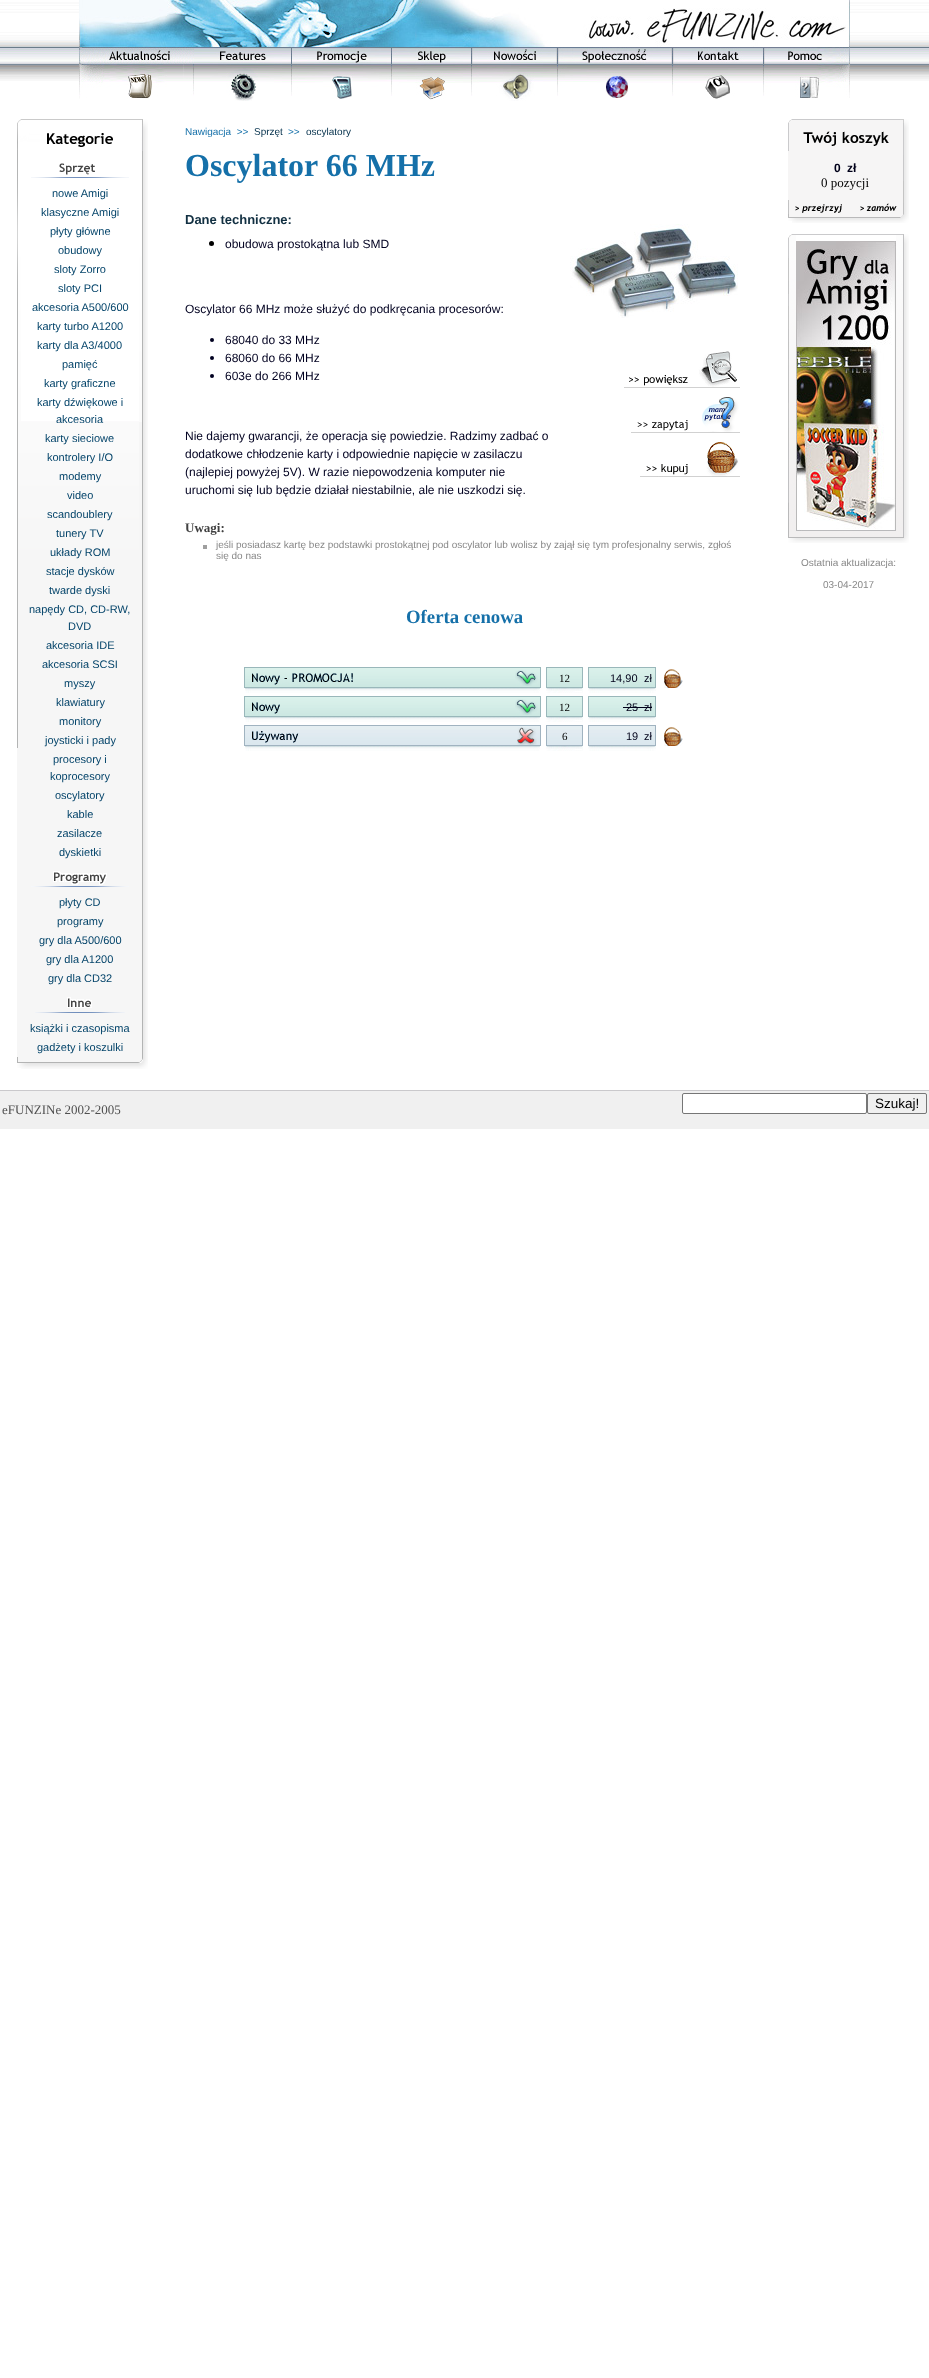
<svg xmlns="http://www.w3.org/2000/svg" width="929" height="2378">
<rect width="100%" height="100%" fill="#fff"/>
<image x="0" y="2" width="929" height="79" href="media/1.png"/>
<image x="79" y="0" width="771" height="47" href="media/2.png"/>
<image x="79" y="47" width="115" height="17" href="media/3.png"/>
<image x="194" y="47" width="97" height="17" href="media/4.png"/>
<image x="291" y="47" width="100" height="17" href="media/5.png"/>
<image x="391" y="47" width="80" height="17" href="media/6.png"/>
<image x="471" y="47" width="86" height="17" href="media/7.png"/>
<image x="557" y="47" width="115" height="17" href="media/8.png"/>
<image x="672" y="47" width="91" height="17" href="media/9.png"/>
<image x="763" y="47" width="87" height="17" href="media/10.png"/>
<image x="79" y="64" width="115" height="35" href="media/11.png"/>
<image x="194" y="64" width="97" height="37" href="media/12.png"/>
<image x="291" y="64" width="100" height="35" href="media/13.png"/>
<image x="391" y="64" width="80" height="36" href="media/14.png"/>
<image x="471" y="65" width="86" height="36" href="media/15.png"/>
<image x="557" y="65" width="115" height="33" href="media/16.png"/>
<image x="672" y="65" width="91" height="34" href="media/17.png"/>
<image x="763" y="64" width="87" height="34" href="media/18.png"/>
<image x="17" y="119" width="4" height="34" href="media/19.png"/>
<image x="21" y="119" width="118" height="28" href="media/20.png"/>
<image x="139" y="119" width="9" height="34" href="media/21.png"/>
<rect x="17" y="748" width="4" height="309" fill="#f6f6f6"/>
<image x="17" y="153" width="4" height="595" href="media/22.png"/>
<image x="21" y="421" width="118" height="636" href="media/23.png"/>
<image x="31" y="163" width="98" height="15" href="media/24.png"/>
<text x="52" y="197" style="font-family:Liberation Sans;font-size:11px;fill:#04446a">nowe Amigi</text>
<text x="41" y="216" style="font-family:Liberation Sans;font-size:11px;fill:#04446a">klasyczne Amigi</text>
<text x="50" y="235" style="font-family:Liberation Sans;font-size:11px;fill:#04446a">płyty główne</text>
<text x="58" y="254" style="font-family:Liberation Sans;font-size:11px;fill:#04446a">obudowy</text>
<text x="54" y="273" style="font-family:Liberation Sans;font-size:11px;fill:#04446a">sloty Zorro</text>
<text x="58" y="292" style="font-family:Liberation Sans;font-size:11px;fill:#04446a">sloty PCI</text>
<text x="32" y="311" style="font-family:Liberation Sans;font-size:11px;fill:#04446a">akcesoria A500/600</text>
<text x="37" y="330" style="font-family:Liberation Sans;font-size:11px;fill:#04446a">karty turbo A1200</text>
<text x="37" y="349" style="font-family:Liberation Sans;font-size:11px;fill:#04446a">karty dla A3/4000</text>
<text x="62" y="368" style="font-family:Liberation Sans;font-size:11px;fill:#04446a">pamięć</text>
<text x="44" y="387" style="font-family:Liberation Sans;font-size:11px;fill:#04446a">karty graficzne</text>
<text x="37" y="406" style="font-family:Liberation Sans;font-size:11px;fill:#04446a">karty dźwiękowe i</text>
<text x="56" y="423" style="font-family:Liberation Sans;font-size:11px;fill:#04446a">akcesoria</text>
<text x="45" y="442" style="font-family:Liberation Sans;font-size:11px;fill:#04446a">karty sieciowe</text>
<text x="47" y="461" style="font-family:Liberation Sans;font-size:11px;fill:#04446a">kontrolery I/O</text>
<text x="59" y="480" style="font-family:Liberation Sans;font-size:11px;fill:#04446a">modemy</text>
<text x="67" y="499" style="font-family:Liberation Sans;font-size:11px;fill:#04446a">video</text>
<text x="47" y="518" style="font-family:Liberation Sans;font-size:11px;fill:#04446a">scandoublery</text>
<text x="56" y="537" style="font-family:Liberation Sans;font-size:11px;fill:#04446a">tunery TV</text>
<text x="50" y="556" style="font-family:Liberation Sans;font-size:11px;fill:#04446a">układy ROM</text>
<text x="46" y="575" style="font-family:Liberation Sans;font-size:11px;fill:#04446a">stacje dysków</text>
<text x="49" y="594" style="font-family:Liberation Sans;font-size:11px;fill:#04446a">twarde dyski</text>
<text x="29" y="613" style="font-family:Liberation Sans;font-size:11px;fill:#04446a">napędy CD, CD-RW,</text>
<text x="68" y="630" style="font-family:Liberation Sans;font-size:11px;fill:#04446a">DVD</text>
<text x="46" y="649" style="font-family:Liberation Sans;font-size:11px;fill:#04446a">akcesoria IDE</text>
<text x="42" y="668" style="font-family:Liberation Sans;font-size:11px;fill:#04446a">akcesoria SCSI</text>
<text x="64" y="687" style="font-family:Liberation Sans;font-size:11px;fill:#04446a">myszy</text>
<text x="56" y="706" style="font-family:Liberation Sans;font-size:11px;fill:#04446a">klawiatury</text>
<text x="59" y="725" style="font-family:Liberation Sans;font-size:11px;fill:#04446a">monitory</text>
<text x="45" y="744" style="font-family:Liberation Sans;font-size:11px;fill:#04446a">joysticki i pady</text>
<text x="53" y="763" style="font-family:Liberation Sans;font-size:11px;fill:#04446a">procesory i</text>
<text x="50" y="780" style="font-family:Liberation Sans;font-size:11px;fill:#04446a">koprocesory</text>
<text x="55" y="799" style="font-family:Liberation Sans;font-size:11px;fill:#04446a">oscylatory</text>
<text x="67" y="818" style="font-family:Liberation Sans;font-size:11px;fill:#04446a">kable</text>
<text x="57" y="837" style="font-family:Liberation Sans;font-size:11px;fill:#04446a">zasilacze</text>
<text x="59" y="856" style="font-family:Liberation Sans;font-size:11px;fill:#04446a">dyskietki</text>
<image x="31" y="871" width="98" height="16" href="media/25.png"/>
<text x="59" y="906" style="font-family:Liberation Sans;font-size:11px;fill:#04446a">płyty CD</text>
<text x="57" y="925" style="font-family:Liberation Sans;font-size:11px;fill:#04446a">programy</text>
<text x="39" y="944" style="font-family:Liberation Sans;font-size:11px;fill:#04446a">gry dla A500/600</text>
<text x="46" y="963" style="font-family:Liberation Sans;font-size:11px;fill:#04446a">gry dla A1200</text>
<text x="48" y="982" style="font-family:Liberation Sans;font-size:11px;fill:#04446a">gry dla CD32</text>
<image x="35" y="997" width="90" height="16" href="media/26.png"/>
<text x="30" y="1032" style="font-family:Liberation Sans;font-size:11px;fill:#04446a">książki i czasopisma</text>
<text x="37" y="1051" style="font-family:Liberation Sans;font-size:11px;fill:#04446a">gadżety i koszulki</text>
<image x="139" y="153" width="9" height="904" href="media/27.png"/>
<image x="139" y="153" width="3" height="269" href="media/28.png"/>
<image x="17" y="1057" width="4" height="11" href="media/29.png"/>
<image x="21" y="1057" width="118" height="12" href="media/30.png"/>
<image x="139" y="1057" width="9" height="12" href="media/31.png"/>
<text x="185" y="135" style="font-family:Liberation Sans;font-size:10px;fill:#1570a9" xml:space="preserve">Nawigacja  &gt;&gt;</text>
<text x="254" y="135" style="font-family:Liberation Sans;font-size:10px;fill:#05314c">Sprzęt</text>
<text x="288" y="135" style="font-family:Liberation Sans;font-size:10px;fill:#1570a9">&gt;&gt;</text>
<text x="306" y="135" style="font-family:Liberation Sans;font-size:10px;fill:#05314c">oscylatory</text>
<text x="185" y="176" style="font-family:Liberation Serif;font-size:32px;font-weight:bold;fill:#1570a9">Oscylator 66 MHz</text>
<text x="185" y="224" style="font-family:Liberation Sans;font-size:13px;font-weight:bold;fill:#123042">Dane techniczne:</text>
<circle cx="211.5" cy="243.5" r="2.5" fill="#000"/>
<text x="225" y="248" style="font-family:Liberation Sans;font-size:12px;fill:#000020">obudowa prostokątna lub SMD</text>
<text x="185" y="313" style="font-family:Liberation Sans;font-size:12px;fill:#000020">Oscylator 66 MHz może służyć do podkręcania procesorów:</text>
<circle cx="212" cy="340" r="2" fill="#000020"/>
<text x="225" y="344" style="font-family:Liberation Sans;font-size:12px;fill:#000020">68040 do 33 MHz</text>
<circle cx="212" cy="358" r="2" fill="#000020"/>
<text x="225" y="362" style="font-family:Liberation Sans;font-size:12px;fill:#000020">68060 do 66 MHz</text>
<circle cx="212" cy="376" r="2" fill="#000020"/>
<text x="225" y="380" style="font-family:Liberation Sans;font-size:12px;fill:#000020">603e do 266 MHz</text>
<text x="185" y="440" style="font-family:Liberation Sans;font-size:12px;fill:#000020">Nie dajemy gwarancji, że operacja się powiedzie. Radzimy zadbać o</text>
<text x="185" y="458" style="font-family:Liberation Sans;font-size:12px;fill:#000020">dodatkowe chłodzenie karty i odpowiednie napięcie w zasilaczu</text>
<text x="185" y="476" style="font-family:Liberation Sans;font-size:12px;fill:#000020">(najlepiej powyżej 5V). W razie niepowodzenia komputer nie</text>
<text x="185" y="494" style="font-family:Liberation Sans;font-size:12px;fill:#000020">uruchomi się lub będzie działał niestabilnie, ale nie uszkodzi się.</text>
<text x="185" y="532" style="font-family:Liberation Serif;font-size:13px;font-weight:bold;fill:#404040">Uwagi:</text>
<rect x="203" y="545" width="4" height="4" fill="#9f9f9f"/>
<text x="216" y="548" style="font-family:Liberation Sans;font-size:10px;fill:#888">jeśli posiadasz kartę bez podstawki prostokątnej pod oscylator lub wolisz by zajął się tym profesjonalny serwis, zgłoś</text>
<text x="216" y="559" style="font-family:Liberation Sans;font-size:10px;fill:#888">się do nas</text>
<image x="570" y="224" width="168" height="94" href="media/32.png"/>
<image x="624" y="351" width="116" height="37" href="media/33.png"/>
<image x="631" y="397" width="109" height="36" href="media/34.png"/>
<image x="640" y="442" width="100" height="35" href="media/35.png"/>
<text x="406" y="623" style="font-family:Liberation Serif;font-size:18.75px;font-weight:bold;fill:#1570a9">Oferta cenowa</text>
<rect x="244" y="667" width="297" height="21" fill="#99b7ba"/>
<image x="245" y="668" width="295" height="19" href="media/36.png"/>
<image x="252" y="673" width="101" height="12" href="media/37.png"/>
<image x="515" y="670" width="23" height="16" href="media/38.png"/>
<rect x="546" y="667" width="37" height="21" fill="#99b7ba"/>
<image x="547" y="668" width="35" height="19" href="media/39.png"/>
<text x="559" y="682" style="font-family:Liberation Serif;font-size:11px;fill:#000">12</text>
<rect x="588" y="667" width="68" height="21" fill="#99b7ba"/>
<image x="589" y="668" width="66" height="19" href="media/40.png"/>
<text x="610" y="682" style="font-family:Liberation Sans;font-size:11px;fill:#000019">14,90</text>
<text x="644" y="682" style="font-family:Liberation Sans;font-size:11px;fill:#000019">zł</text>
<image x="664" y="669" width="19" height="19" href="media/41.png"/>
<image x="245" y="688" width="295" height="5" href="media/42.png"/>
<image x="546" y="688" width="37" height="5" href="media/43.png"/>
<image x="588" y="688" width="68" height="5" href="media/44.png"/>
<rect x="244" y="696" width="297" height="21" fill="#99b7ba"/>
<image x="245" y="697" width="295" height="19" href="media/36.png"/>
<image x="252" y="702" width="28" height="12" href="media/45.png"/>
<image x="515" y="699" width="23" height="16" href="media/38.png"/>
<rect x="546" y="696" width="37" height="21" fill="#99b7ba"/>
<image x="547" y="697" width="35" height="19" href="media/39.png"/>
<text x="559" y="711" style="font-family:Liberation Serif;font-size:11px;fill:#000">12</text>
<rect x="588" y="696" width="68" height="21" fill="#99b7ba"/>
<image x="589" y="697" width="66" height="19" href="media/40.png"/>
<text x="626" y="711" style="font-family:Liberation Sans;font-size:11px;fill:#000019">25</text>
<rect x="623" y="707" width="18" height="1" fill="#000019"/>
<text x="644" y="711" style="font-family:Liberation Sans;font-size:11px;fill:#000019">zł</text>
<rect x="641" y="707" width="11" height="1" fill="#000019"/>
<image x="245" y="717" width="295" height="5" href="media/42.png"/>
<image x="546" y="717" width="37" height="5" href="media/43.png"/>
<image x="588" y="717" width="68" height="5" href="media/44.png"/>
<rect x="244" y="725" width="297" height="21" fill="#a0b3c0"/>
<image x="245" y="726" width="295" height="19" href="media/46.png"/>
<image x="252" y="731" width="47" height="12" href="media/47.png"/>
<image x="517" y="727" width="20" height="18" href="media/48.png"/>
<rect x="546" y="725" width="37" height="21" fill="#a0b3c0"/>
<image x="547" y="726" width="35" height="19" href="media/49.png"/>
<text x="562" y="740" style="font-family:Liberation Serif;font-size:11px;fill:#000">6</text>
<rect x="588" y="725" width="68" height="21" fill="#a0b3c0"/>
<image x="589" y="726" width="66" height="19" href="media/50.png"/>
<text x="626" y="740" style="font-family:Liberation Sans;font-size:11px;fill:#000019">19</text>
<text x="644" y="740" style="font-family:Liberation Sans;font-size:11px;fill:#000019">zł</text>
<image x="664" y="727" width="19" height="19" href="media/41.png"/>
<image x="245" y="746" width="295" height="5" href="media/42.png"/>
<image x="546" y="746" width="37" height="5" href="media/43.png"/>
<image x="588" y="746" width="68" height="5" href="media/44.png"/>
<image x="788" y="119" width="4" height="32" href="media/51.png"/>
<image x="792" y="119" width="56" height="32" href="media/52.png"/>
<image x="848" y="119" width="51" height="32" href="media/53.png"/>
<image x="899" y="119" width="10" height="32" href="media/54.png"/>
<rect x="788" y="151" width="111" height="49" fill="#f6f5f5"/>
<text x="834" y="172" style="font-family:Liberation Sans;font-size:12px;font-weight:bold;fill:#000019">0</text>
<text x="847" y="172" style="font-family:Liberation Sans;font-size:12px;font-weight:bold;fill:#000019">zł</text>
<text x="821" y="187" style="font-family:Liberation Serif;font-size:13px;fill:#000">0 pozycji</text>
<image x="899" y="151" width="10" height="49" href="media/55.png"/>
<image x="788" y="200" width="4" height="21" href="media/56.png"/>
<image x="792" y="200" width="56" height="23" href="media/57.png"/>
<image x="848" y="200" width="51" height="23" href="media/58.png"/>
<image x="899" y="200" width="10" height="23" href="media/59.png"/>
<image x="788" y="234" width="8" height="7" href="media/60.png"/>
<rect x="796" y="234" width="100" height="1" fill="#cacacc"/>
<image x="896" y="234" width="13" height="7" href="media/61.png"/>
<image x="788" y="241" width="8" height="290" href="media/62.png"/>
<image x="796" y="241" width="100" height="290" href="media/63.png"/>
<image x="896" y="241" width="13" height="290" href="media/64.png"/>
<image x="788" y="531" width="8" height="12" href="media/65.png"/>
<image x="796" y="531" width="100" height="12" href="media/66.png"/>
<image x="896" y="531" width="13" height="12" href="media/67.png"/>
<text x="801" y="566" style="font-family:Liberation Sans;font-size:10px;fill:#888">Ostatnia aktualizacja:</text>
<text x="823" y="588" style="font-family:Liberation Sans;font-size:10px;fill:#888">03-04-2017</text>
<rect y="1090" width="929" height="1" fill="#cac9cc"/>
<rect y="1091" width="929" height="38" fill="#f0f0f0"/>
<text x="2" y="1114" style="font-family:Liberation Serif;font-size:13px;fill:#505050">eFUNZINe 2002-2005</text>
<rect x="682.5" y="1093.5" width="184" height="20" rx="1.5" fill="#fff" stroke="#767676"/>
<rect x="867.5" y="1093.5" width="59" height="20" rx="1.5" fill="none" stroke="#767676"/>
<text x="875" y="1108" style="font-family:Liberation Sans;font-size:13.5px;fill:#000">Szukaj!</text>
</svg>
